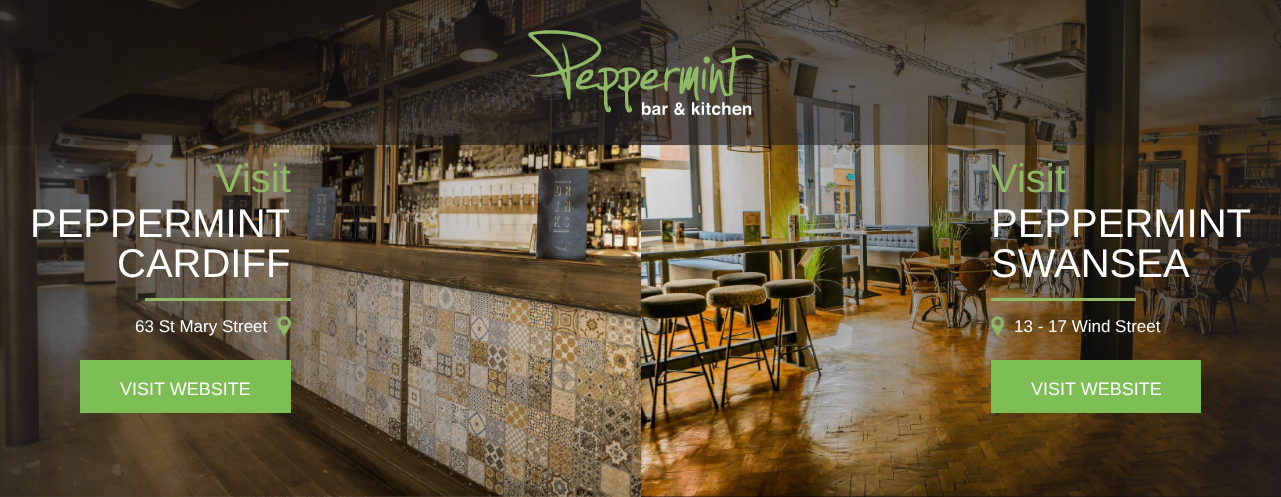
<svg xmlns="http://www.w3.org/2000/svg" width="1281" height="497">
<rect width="100%" height="100%" fill="#fff"/>
<image x="0" y="0" width="641" height="497" href="media/3.png"/>
<image x="0" y="0" width="625" height="497" href="media/4.png"/>
<image x="641" y="0" width="640" height="497" href="media/6.png"/>
<image x="641" y="0" width="640" height="497" href="media/7.png"/>
<image x="0" y="0" width="1281" height="145" href="media/1.png"/>
<image x="528" y="30" width="226" height="85" href="media/2.png"/>
<text x="216" y="192" style="font-family:Liberation Sans;font-size:40px;fill:#90b966">Visit</text>
<text x="30" y="237" style="font-family:Liberation Sans;font-size:40px;fill:#fff">PEPPERMINT</text>
<text x="117" y="277" style="font-family:Liberation Sans;font-size:40px;fill:#fff">CARDIFF</text>
<rect x="145" y="298" width="146" height="3" fill="#90b966"/>
<text x="135" y="332" style="font-family:Liberation Sans;font-size:17px;fill:#fff">63 St Mary Street</text>
<image x="277" y="316" width="14" height="20" href="media/5.png"/>
<rect x="80" y="360" width="211" height="53" fill="#7dbe54"/>
<text x="120" y="395" style="font-family:Liberation Sans;font-size:18px;fill:#fff">VISIT WEBSITE</text>
<text x="991" y="192" style="font-family:Liberation Sans;font-size:40px;fill:#90b966">Visit</text>
<text x="991" y="237" style="font-family:Liberation Sans;font-size:40px;fill:#fff">PEPPERMINT</text>
<text x="991" y="277" style="font-family:Liberation Sans;font-size:40px;fill:#fff">SWANSEA</text>
<rect x="991" y="298" width="145" height="3" fill="#90b966"/>
<image x="991" y="316" width="13" height="20" href="media/8.png"/>
<text x="1014" y="332" style="font-family:Liberation Sans;font-size:17px;fill:#fff">13 - 17 Wind Street</text>
<rect x="991" y="360" width="210" height="53" fill="#7dbe54"/>
<text x="1031" y="395" style="font-family:Liberation Sans;font-size:18px;fill:#fff">VISIT WEBSITE</text>
</svg>
